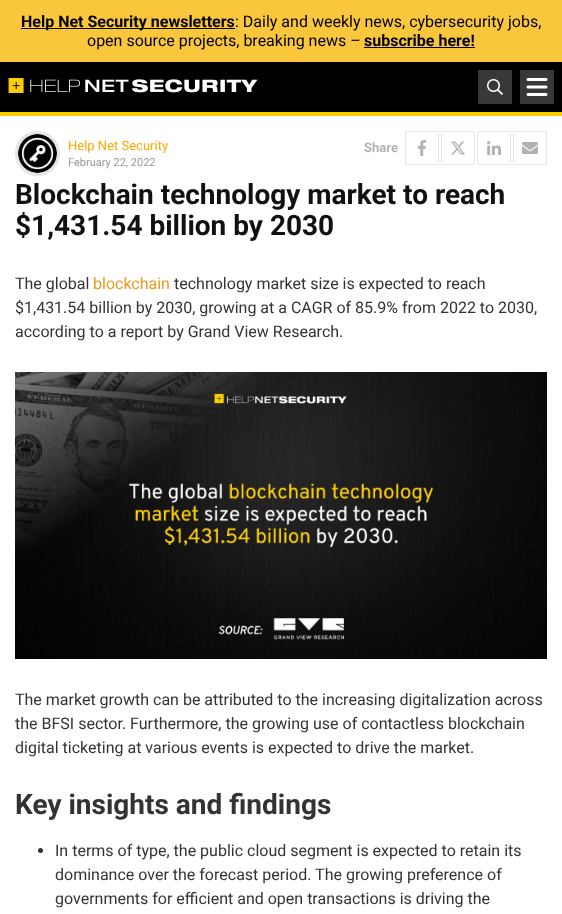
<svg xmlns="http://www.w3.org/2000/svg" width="562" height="914">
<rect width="100%" height="100%" fill="#fff"/>
<rect width="562" height="62" fill="#f9c63c"/>
<rect x="21" y="28" width="214" height="1" fill="#000"/>
<text x="21" y="27" style="font-family:Roboto;font-size:16px;font-weight:bold;fill:#000">Help Net Security newsletters</text>
<text x="235" y="27" style="font-family:Roboto;font-size:16px;fill:#000">: Daily and weekly news, cybersecurity jobs,</text>
<text x="87" y="46" style="font-family:Roboto;font-size:16px;fill:#000">open source projects, breaking news –</text>
<text x="364" y="46" style="font-family:Roboto;font-size:16px;font-weight:bold;fill:#000">subscribe here!</text>
<rect x="364" y="47" width="111" height="1" fill="#000"/>
<rect y="62" width="562" height="50" fill="#000"/>
<image x="8" y="78" width="250" height="15" href="media/1.png"/>
<rect x="478" y="70" width="34" height="34" fill="#393838"/>
<image x="487" y="79" width="16" height="16" href="media/2.png"/>
<rect x="520" y="70" width="34" height="34" fill="#393838"/>
<image x="526" y="78" width="22" height="18" href="media/3.png"/>
<rect y="112" width="562" height="4" fill="#fdcd00"/>
<circle cx="37.5" cy="153.5" r="21" fill="none" stroke="#e5e5e5" stroke-width="3"/>
<image x="18" y="134" width="39" height="39" href="media/4.png"/>
<text x="68" y="150" style="font-family:Roboto;font-size:13px;fill:#fda700">Help Net Security</text>
<text x="68" y="166" style="font-family:Roboto;font-size:11px;fill:#999">February 22, 2022</text>
<text x="364" y="152" style="font-family:Roboto;font-size:13px;font-weight:bold;fill:#b2b2b2">Share</text>
<rect x="405.5" y="131.5" width="33" height="33" rx="1.5" fill="none" stroke="#e5e5e5"/>
<image x="417" y="140" width="10" height="16" href="media/5.png"/>
<rect x="441.5" y="131.5" width="33" height="33" rx="1.5" fill="none" stroke="#e5e5e5"/>
<image x="451" y="141" width="14" height="14" href="media/6.png"/>
<rect x="477.5" y="131.5" width="33" height="33" rx="1.5" fill="none" stroke="#e5e5e5"/>
<image x="487" y="141" width="14" height="14" href="media/7.png"/>
<rect x="513.5" y="131.5" width="33" height="33" rx="1.5" fill="none" stroke="#e5e5e5"/>
<image x="522" y="142" width="16" height="12" href="media/8.png"/>
<text x="15" y="204" style="font-family:Roboto;font-size:28px;font-weight:bold;fill:#111">Blockchain technology market to reach</text>
<text x="15" y="235" style="font-family:Roboto;font-size:28px;font-weight:bold;fill:#111">$1,431.54 billion by 2030</text>
<text x="15" y="289" style="font-family:Roboto;font-size:16px;fill:#333">The global</text>
<text x="93" y="289" style="font-family:Roboto;font-size:16px;fill:#ec991d">blockchain</text>
<text x="174" y="289" style="font-family:Roboto;font-size:16px;fill:#333">technology market size is expected to reach</text>
<text x="15" y="313" style="font-family:Roboto;font-size:16px;fill:#333">$1,431.54 billion by 2030, growing at a CAGR of 85.9% from 2022 to 2030,</text>
<text x="15" y="337" style="font-family:Roboto;font-size:16px;fill:#333">according to a report by Grand View Research.</text>
<image x="15" y="372" width="532" height="287" href="media/9.png"/>
<text x="15" y="705" style="font-family:Roboto;font-size:16px;fill:#333">The market growth can be attributed to the increasing digitalization across</text>
<text x="15" y="729" style="font-family:Roboto;font-size:16px;fill:#333">the BFSI sector. Furthermore, the growing use of contactless blockchain</text>
<text x="15" y="753" style="font-family:Roboto;font-size:16px;fill:#333">digital ticketing at various events is expected to drive the market.</text>
<text x="15" y="814" style="font-family:Roboto;font-size:28px;font-weight:bold;fill:#333">Key insights and findings</text>
<circle cx="40.5" cy="850.5" r="2.5" fill="#333"/>
<text x="55" y="856" style="font-family:Roboto;font-size:16px;fill:#333">In terms of type, the public cloud segment is expected to retain its</text>
<text x="55" y="880" style="font-family:Roboto;font-size:16px;fill:#333">dominance over the forecast period. The growing preference of</text>
<text x="55" y="904" style="font-family:Roboto;font-size:16px;fill:#333">governments for efficient and open transactions is driving the</text>
</svg>
